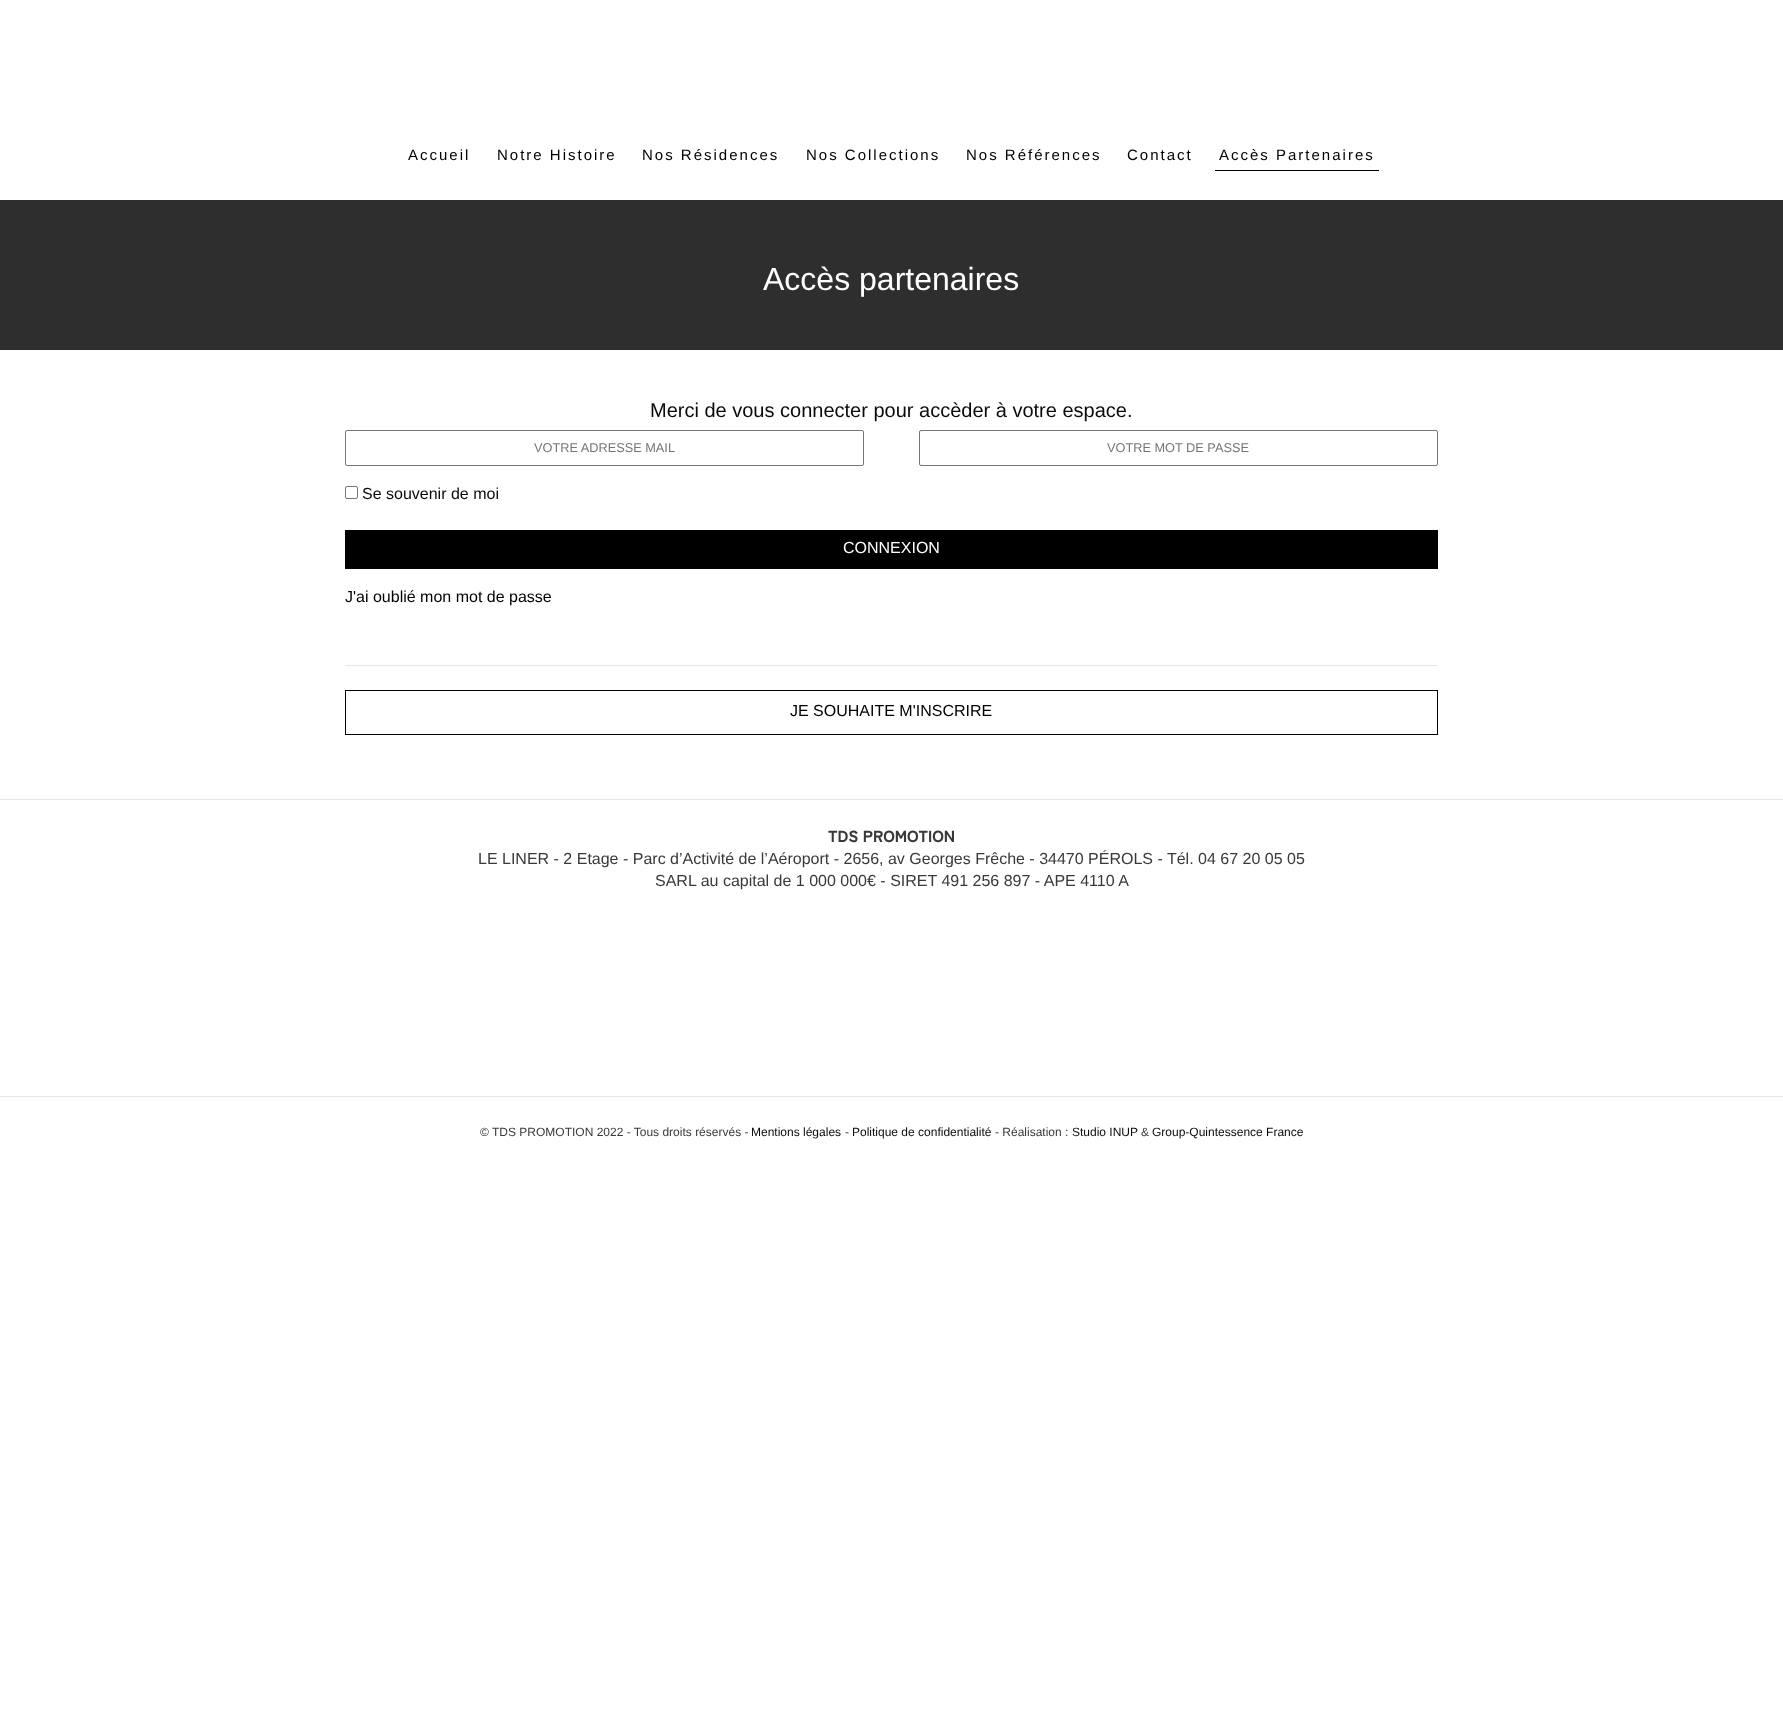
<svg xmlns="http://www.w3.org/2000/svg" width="1783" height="1734">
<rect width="100%" height="100%" fill="#fff"/>
<text x="408" y="160" style="font-family:Liberation Sans;font-size:15px;letter-spacing:2px;fill:#000">Accueil</text>
<text x="497" y="160" style="font-family:Liberation Sans;font-size:15px;letter-spacing:2px;fill:#000">Notre Histoire</text>
<text x="642" y="160" style="font-family:Liberation Sans;font-size:15px;letter-spacing:2px;fill:#000">Nos Résidences</text>
<text x="806" y="160" style="font-family:Liberation Sans;font-size:15px;letter-spacing:2px;fill:#000">Nos Collections</text>
<text x="966" y="160" style="font-family:Liberation Sans;font-size:15px;letter-spacing:2px;fill:#000">Nos Références</text>
<text x="1127" y="160" style="font-family:Liberation Sans;font-size:15px;letter-spacing:2px;fill:#000">Contact</text>
<text x="1219" y="160" style="font-family:Liberation Sans;font-size:15px;letter-spacing:2px;fill:#000">Accès Partenaires</text>
<rect x="1215" y="170" width="164" height="1" fill="#000"/>
<rect y="200" width="1783" height="150" fill="#2e2e2e"/>
<text x="763" y="290" style="font-family:Liberation Sans;font-size:32px;fill:#fff">Accès partenaires</text>
<text x="650" y="417" style="font-family:Liberation Sans;font-size:20px;fill:#0a0a0a">Merci de vous connecter pour accèder à votre espace.</text>
<rect x="345.5" y="430.5" width="518" height="35" rx="1.5" fill="none" stroke="#767676"/>
<text x="534" y="452" style="font-family:Liberation Sans;font-size:12.75px;fill:#757575">VOTRE ADRESSE MAIL</text>
<rect x="919.5" y="430.5" width="518" height="35" rx="1.5" fill="none" stroke="#767676"/>
<text x="1107" y="452" style="font-family:Liberation Sans;font-size:12.75px;fill:#757575">VOTRE MOT DE PASSE</text>
<rect x="345.5" y="486.5" width="12" height="12" rx="1.5" fill="none" stroke="#767676"/>
<text x="362" y="499" style="font-family:Liberation Sans;font-size:16px;fill:#0a0a0a">Se souvenir de moi</text>
<rect x="345" y="530" width="1093" height="39" fill="#000"/>
<text x="843" y="553" style="font-family:Liberation Sans;font-size:16px;fill:#fff">CONNEXION</text>
<text x="345" y="602" style="font-family:Liberation Sans;font-size:16px;fill:#000">J'ai oublié mon mot de passe</text>
<rect x="345" y="665" width="1093" height="1" fill="#e6e6e6"/>
<rect x="345.5" y="690.5" width="1092" height="44" fill="none" stroke="#000"/>
<text x="790" y="716" style="font-family:Liberation Sans;font-size:16px;fill:#000">JE SOUHAITE M'INSCRIRE</text>
<rect y="799" width="1783" height="1" fill="#e6e6e6"/>
<text x="828" y="842" style="font-family:Zen Kaku Gothic New;font-size:16px;font-weight:900;fill:#393939">TDS PROMOTION</text>
<text x="478" y="864" style="font-family:Liberation Sans;font-size:16px;fill:#393939">LE LINER - 2 Etage - Parc d’Activité de l’Aéroport - 2656, av Georges Frêche - 34470 PÉROLS - Tél. 04 67 20 05 05</text>
<text x="655" y="886" style="font-family:Liberation Sans;font-size:16px;fill:#393939">SARL au capital de 1 000 000€ - SIRET 491 256 897 - APE 4110 A</text>
<rect y="1096" width="1783" height="1" fill="#e6e6e6"/>
<text x="480" y="1136" style="font-family:Liberation Sans;font-size:12px;fill:#393939">© TDS PROMOTION 2022 - Tous droits réservés -</text>
<text x="751" y="1136" style="font-family:Liberation Sans;font-size:12px;fill:#0a0a0a">Mentions légales</text>
<text x="845" y="1136" style="font-family:Liberation Sans;font-size:12px;fill:#393939">-</text>
<text x="852" y="1136" style="font-family:Liberation Sans;font-size:12px;fill:#0a0a0a">Politique de confidentialité</text>
<text x="995" y="1136" style="font-family:Liberation Sans;font-size:12px;fill:#393939">- Réalisation :</text>
<text x="1072" y="1136" style="font-family:Liberation Sans;font-size:12px;fill:#0a0a0a">Studio INUP</text>
<text x="1141" y="1136" style="font-family:Liberation Sans;font-size:12px;fill:#393939">&amp;</text>
<text x="1152" y="1136" style="font-family:Liberation Sans;font-size:12px;fill:#0a0a0a">Group-Quintessence France</text>
</svg>
